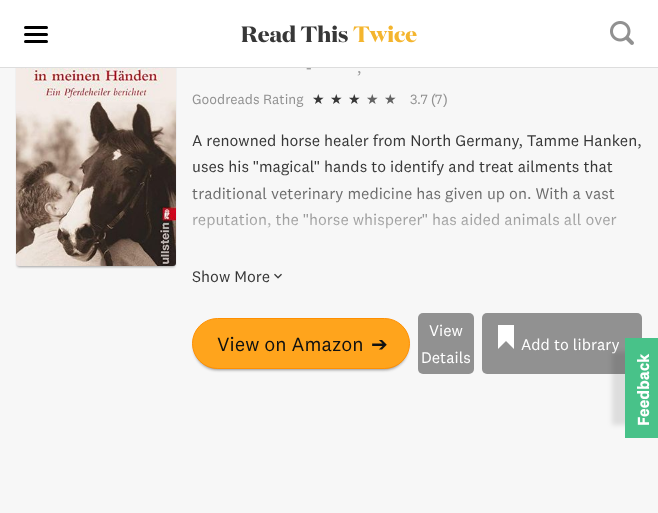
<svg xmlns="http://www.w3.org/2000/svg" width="658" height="513">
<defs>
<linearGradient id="g1" gradientUnits="userSpaceOnUse" x1="417" y1="263" x2="417" y2="167"><stop offset="0" stop-color="#f7f7f7"/><stop offset="1" stop-color="#f7f7f7" stop-opacity="0"/></linearGradient>
</defs>
<rect width="100%" height="100%" fill="#f7f7f7"/>
<rect x="17" y="29" width="158" height="238" rx="2" fill="#a3a3a3" filter="blur(1px)"/>
<rect width="658" height="67" fill="#fff"/>
<rect y="67" width="658" height="1" fill="#ddd"/>
<rect x="24" y="33" width="24" height="3" rx="1.5" fill="#000"/>
<rect x="24" y="26" width="24" height="3" rx="1.5" fill="#000"/>
<rect x="24" y="40" width="24" height="3" rx="1.5" fill="#000"/>
<text x="241" y="42" style="font-family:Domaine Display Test;font-size:22px;font-weight:bold;fill:#373737">Read This</text>
<text x="353" y="42" style="font-family:Domaine Display Test;font-size:22px;font-weight:bold;fill:#f4b52e">Twice</text>
<image x="610" y="21" width="24" height="24" href="media/1.png"/>
<image x="16" y="68" width="160" height="198" href="media/2.png"/>
<text x="306" y="73" style="font-family:'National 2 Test';font-size:16px;fill:#919191">-</text>
<text x="357" y="73" style="font-family:'National 2 Test';font-size:16px;fill:#919191">,</text>
<text x="192" y="104" style="font-family:'National 2 Test';font-size:14px;fill:#919191">Goodreads Rating</text>
<text x="312" y="104" style="font-family:DejaVu Sans;font-size:14px;fill:#373737">★</text>
<text x="330" y="104" style="font-family:DejaVu Sans;font-size:14px;fill:#373737">★</text>
<text x="348" y="104" style="font-family:DejaVu Sans;font-size:14px;fill:#373737">★</text>
<text x="366" y="104" style="font-family:DejaVu Sans;font-size:14px;fill:#636363">★</text>
<text x="384" y="104" style="font-family:DejaVu Sans;font-size:14px;fill:#636363">★</text>
<text x="410" y="104" style="font-family:'National 2 Test';font-size:14px;fill:#919191">3.7</text>
<text x="431" y="104" style="font-family:Liberation Sans;font-size:14px;fill:#919191">(</text>
<text x="435" y="104" style="font-family:'National 2 Test';font-size:14px;fill:#919191">7</text>
<text x="443" y="104" style="font-family:Liberation Sans;font-size:14px;fill:#919191">)</text>
<text x="192" y="146" style="font-family:'National 2 Test';font-size:16px;fill:#373737">A renowned horse healer from North Germany, Tamme Hanken,</text>
<text x="192" y="172" style="font-family:'National 2 Test';font-size:16px;fill:#373737">uses his</text>
<text x="253" y="172" style="font-family:Liberation Sans;font-size:16px;fill:#373737">"</text>
<text x="259" y="172" style="font-family:'National 2 Test';font-size:16px;fill:#373737">magical</text>
<text x="314" y="172" style="font-family:Liberation Sans;font-size:16px;fill:#373737">"</text>
<text x="324" y="172" style="font-family:'National 2 Test';font-size:16px;fill:#373737">hands to identify and treat ailments that</text>
<text x="192" y="199" style="font-family:'National 2 Test';font-size:16px;fill:#373737">traditional veterinary medicine has given up on. With a vast</text>
<text x="192" y="225" style="font-family:'National 2 Test';font-size:16px;fill:#373737">reputation, the</text>
<text x="303" y="225" style="font-family:Liberation Sans;font-size:16px;fill:#373737">"</text>
<text x="309" y="225" style="font-family:'National 2 Test';font-size:16px;fill:#373737">horse whisperer</text>
<text x="422" y="225" style="font-family:Liberation Sans;font-size:16px;fill:#373737">"</text>
<text x="432" y="225" style="font-family:'National 2 Test';font-size:16px;fill:#373737">has aided animals all over</text>
<rect x="192" y="169" width="424" height="60" fill="url(#g1)"/>
<text x="192" y="282" style="font-family:'National 2 Test';font-size:16px;fill:#373737">Show More</text>
<image x="274" y="273" width="8" height="6" href="media/3.png"/>
<rect x="194" y="323" width="214" height="47" rx="23.5" fill="#919191" filter="blur(1.5px)"/>
<rect x="192.5" y="318.5" width="217" height="50" rx="25" fill="#ffa41c" stroke="#ff8f00"/>
<text x="217" y="351" style="font-family:'National 2 Test';font-size:20px;fill:#0f1111">View on Amazon</text>
<text x="371" y="351" style="font-family:DejaVu Sans;font-size:20px;fill:#0f1111">➔</text>
<rect x="418" y="313" width="56" height="61" rx="5" fill="#919191"/>
<text x="429" y="336" style="font-family:'National 2 Test';font-size:16px;fill:#fff">View</text>
<text x="421" y="363" style="font-family:'National 2 Test';font-size:16px;fill:#fff">Details</text>
<rect x="482" y="313" width="160" height="61" rx="5" fill="#919191"/>
<rect x="498" y="325" width="16" height="16" fill="#fff"/>
<path d="M514 333v16l-8-8zm-16 16v-16l8 8z" fill="#fff"/>
<text x="521" y="350" style="font-family:'National 2 Test';font-size:16px;fill:#fff">Add to library</text>
<rect x="612" y="352" width="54" height="73" fill="#0000001a" filter="blur(2.5px)"/>
<rect x="625" y="338" width="33" height="100" fill="#48c289"/>
<text x="649" y="426" transform="rotate(-90 649 426)" style="font-family:'National 2 Test';font-size:16px;font-weight:bold;letter-spacing:0.25px;fill:#fff">Feedback</text>
</svg>
